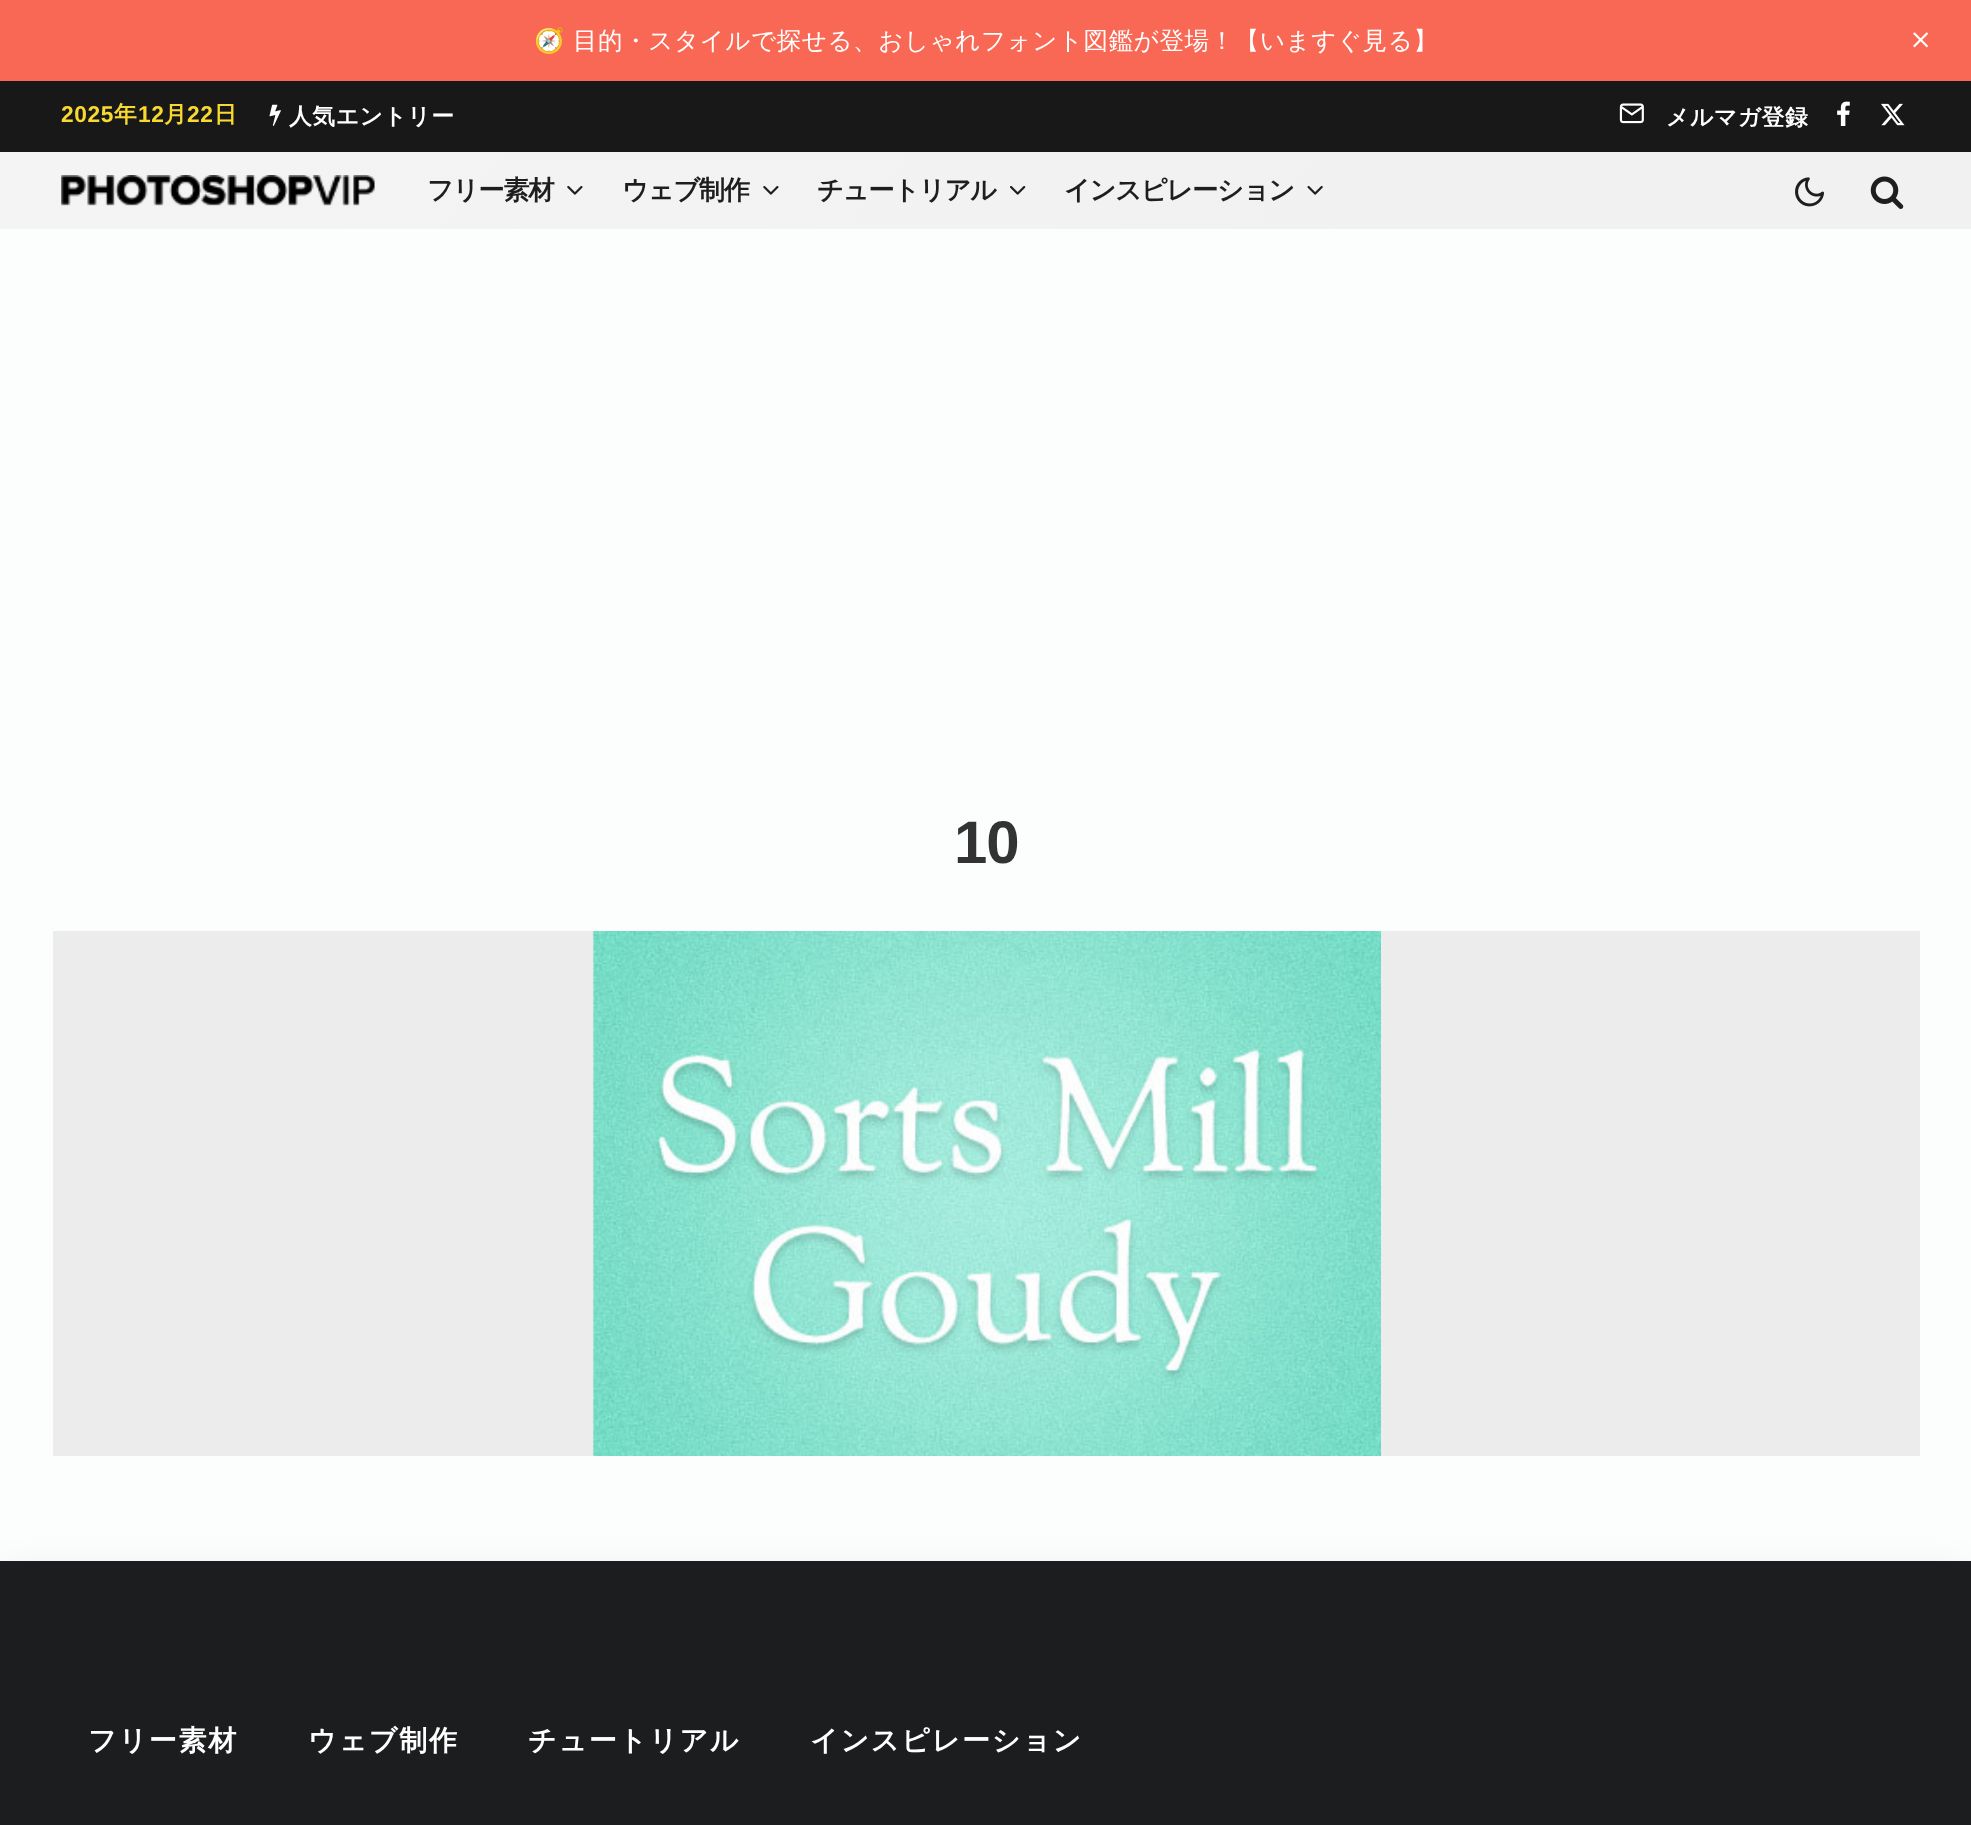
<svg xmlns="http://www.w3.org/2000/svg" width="1971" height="1825">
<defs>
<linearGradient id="g1" gradientUnits="userSpaceOnUse" x1="388" y1="-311" x2="1584" y2="692"><stop offset="0" stop-color="#f4f4f4"/><stop offset="0.8" stop-color="#f1f1f1"/></linearGradient>
</defs>
<rect width="100%" height="100%" fill="#fcfdfd"/>
<rect width="1971" height="81" fill="#f96854"/>
<text x="534" y="49" style="font-family:Noto Color Emoji;font-size:24.5px;letter-spacing:0.6px;fill:#fff">🧭</text>
<text x="573" y="49" style="font-family:WenQuanYi Zen Hei;font-size:24.5px;font-weight:500;letter-spacing:0.6px;fill:#fff">目的・スタイルで探せる、おしゃれフォント図鑑が登場！【いますぐ見る】</text>
<image x="1913" y="32" width="16" height="16" href="media/1.png"/>
<rect y="81" width="1971" height="71" fill="#181818"/>
<text x="61" y="122" style="font-family:Liberation Sans;font-size:22.75px;font-weight:bold;letter-spacing:0.6px;fill:#f8d92f">2025</text>
<text x="114" y="122" style="font-family:WenQuanYi Zen Hei;font-size:22.75px;font-weight:bold;letter-spacing:0.6px;fill:#f8d92f">年</text>
<text x="138" y="122" style="font-family:Liberation Sans;font-size:22.75px;font-weight:bold;letter-spacing:0.6px;fill:#f8d92f">12</text>
<text x="164" y="122" style="font-family:WenQuanYi Zen Hei;font-size:22.75px;font-weight:bold;letter-spacing:0.6px;fill:#f8d92f">月</text>
<text x="187" y="122" style="font-family:Liberation Sans;font-size:22.75px;font-weight:bold;letter-spacing:0.6px;fill:#f8d92f">22</text>
<text x="214" y="122" style="font-family:WenQuanYi Zen Hei;font-size:22.75px;font-weight:bold;letter-spacing:0.6px;fill:#f8d92f">日</text>
<image x="269" y="104" width="12" height="22" href="media/2.png"/>
<text x="289" y="124" style="font-family:WenQuanYi Zen Hei;font-size:22.75px;font-weight:bold;letter-spacing:0.6px;fill:#fff">人気エントリー</text>
<image x="1619" y="103" width="25" height="21" href="media/3.png"/>
<text x="1666" y="125" style="font-family:WenQuanYi Zen Hei;font-size:22.75px;font-weight:bold;letter-spacing:0.6px;fill:#fff">メルマガ登録</text>
<image x="1837" y="101" width="13" height="25" href="media/4.png"/>
<image x="1881" y="103" width="24" height="23" href="media/5.png"/>
<rect y="152" width="1971" height="77" fill="url(#g1)"/>
<image x="61" y="175" width="314" height="31" href="media/6.png"/>
<text x="427" y="199" style="font-family:WenQuanYi Zen Hei;font-size:26.25px;font-weight:bold;letter-spacing:-1.25px;fill:#1e1e1e">フリー素材</text>
<image x="567" y="186" width="16" height="9" href="media/7.png"/>
<text x="622" y="199" style="font-family:WenQuanYi Zen Hei;font-size:26.25px;font-weight:bold;letter-spacing:-1.25px;fill:#1e1e1e">ウェブ制作</text>
<image x="763" y="186" width="16" height="9" href="media/7.png"/>
<text x="817" y="199" style="font-family:WenQuanYi Zen Hei;font-size:26.25px;font-weight:bold;letter-spacing:-1.25px;fill:#1e1e1e">チュートリアル</text>
<image x="1010" y="186" width="16" height="9" href="media/8.png"/>
<text x="1064" y="199" style="font-family:WenQuanYi Zen Hei;font-size:26.25px;font-weight:bold;letter-spacing:-1.25px;fill:#1e1e1e">インスピレーション</text>
<image x="1307" y="186" width="16" height="9" href="media/9.png"/>
<image x="1795" y="177" width="30" height="30" href="media/10.png"/>
<image x="1870" y="176" width="34" height="33" href="media/11.png"/>
<text x="954" y="863" style="font-family:Liberation Sans;font-size:60px;font-weight:bold;letter-spacing:-1px;fill:#333">10</text>
<rect x="53" y="931" width="1867" height="525" fill="#ececec"/>
<image x="592" y="931" width="789" height="525" href="media/12.png"/>
<rect x="7" y="1582" width="1958" height="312" fill="#14141426" filter="blur(23px)"/>
<rect y="1561" width="1971" height="264" fill="#1c1d1e"/>
<text x="88" y="1750" style="font-family:WenQuanYi Zen Hei;font-size:28px;font-weight:bold;letter-spacing:1.75px;fill:#fff">フリー素材</text>
<text x="308" y="1750" style="font-family:WenQuanYi Zen Hei;font-size:28px;font-weight:bold;letter-spacing:1.75px;fill:#fff">ウェブ制作</text>
<text x="528" y="1750" style="font-family:WenQuanYi Zen Hei;font-size:28px;font-weight:bold;letter-spacing:1.75px;fill:#fff">チュートリアル</text>
<text x="810" y="1750" style="font-family:WenQuanYi Zen Hei;font-size:28px;font-weight:bold;letter-spacing:1.75px;fill:#fff">インスピレーション</text>
</svg>
